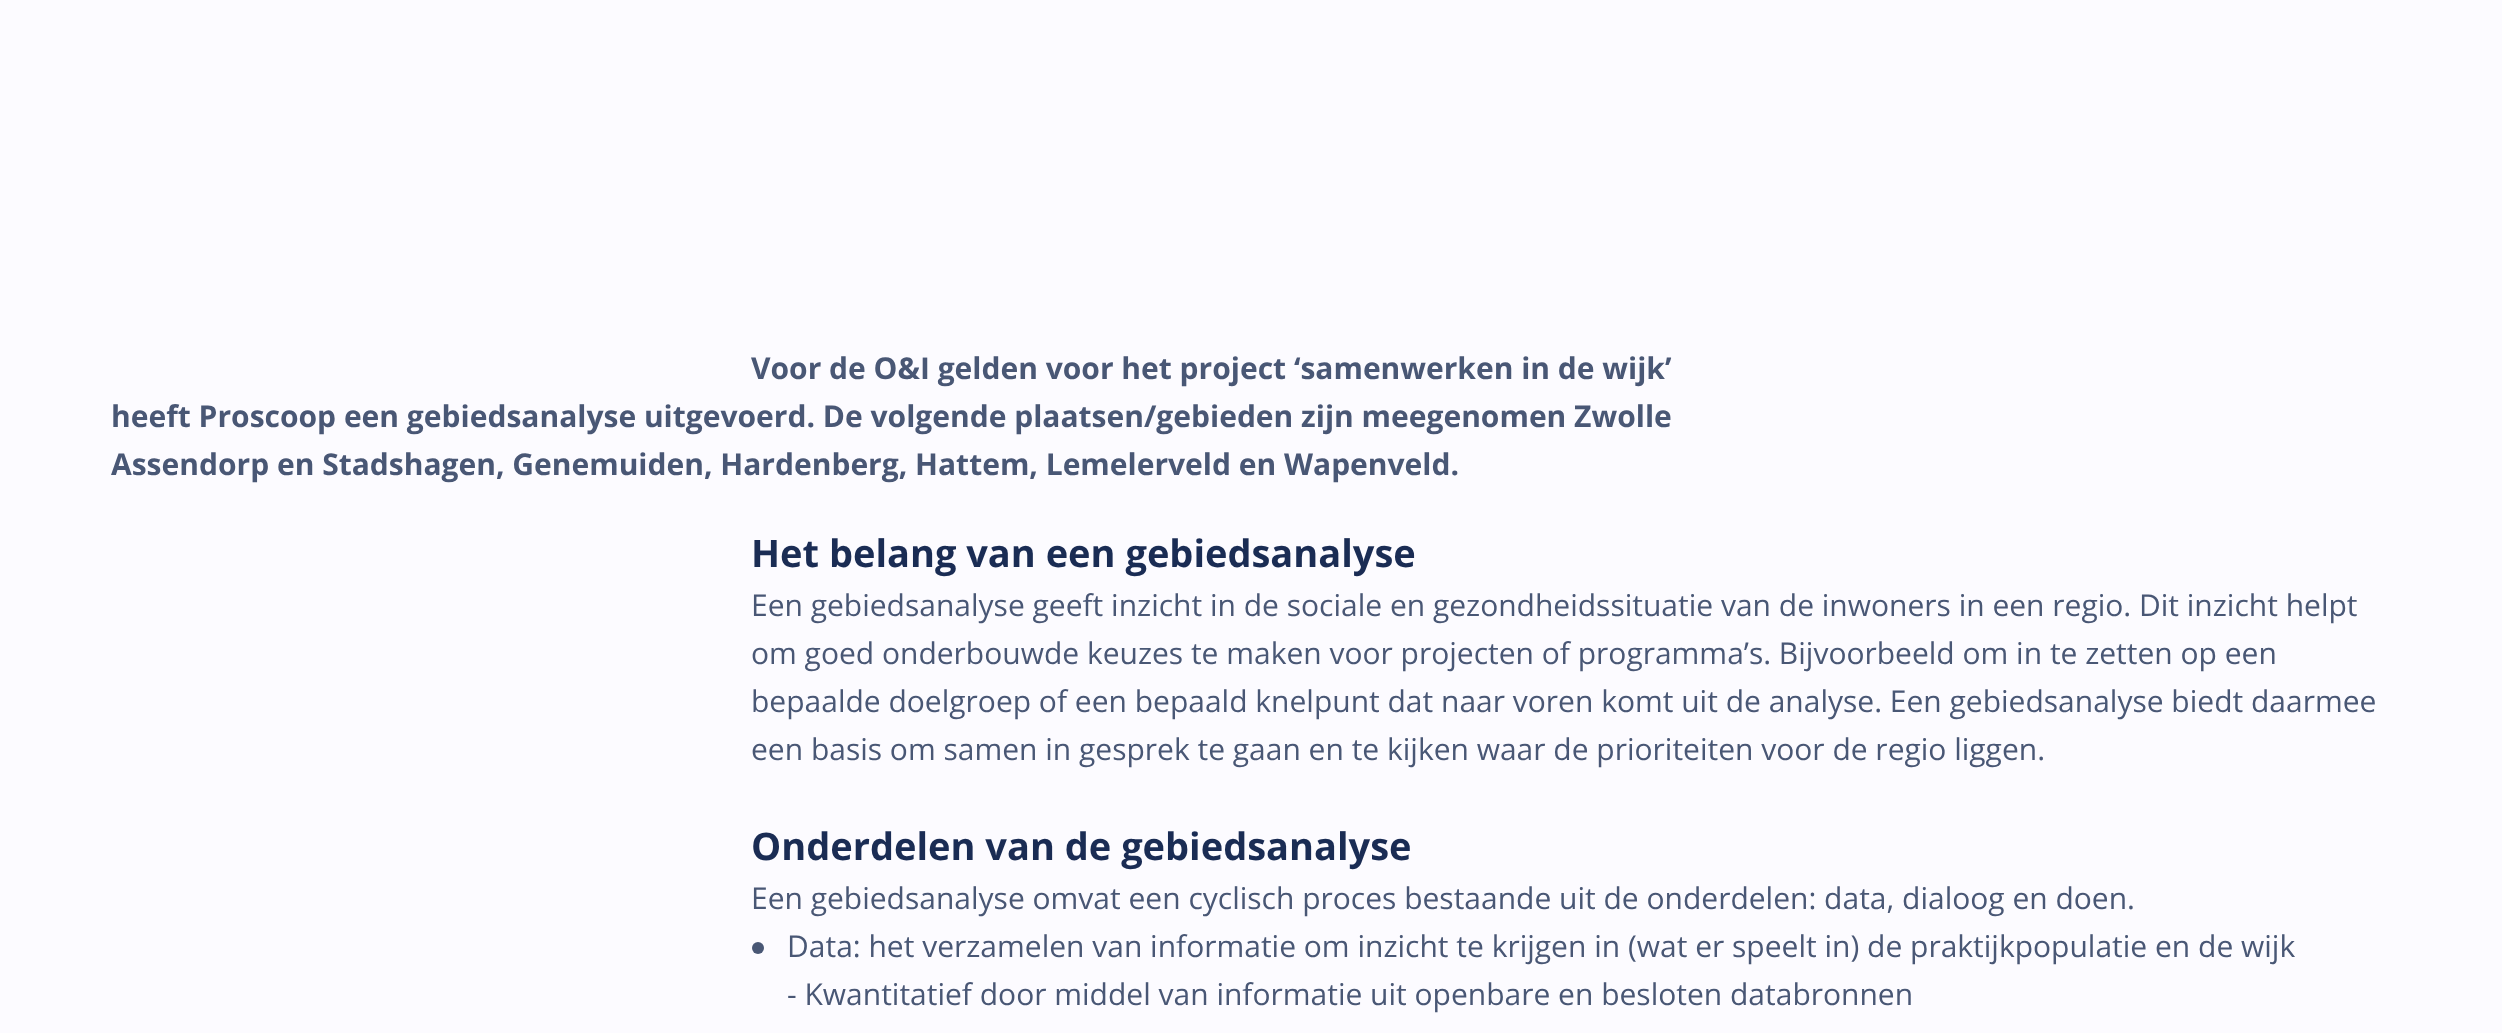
<svg xmlns="http://www.w3.org/2000/svg" width="2502" height="1033">
<rect width="100%" height="100%" fill="#fcfbff"/>
<text x="751" y="379" style="font-family:Open Sans;font-size:30px;font-weight:bold;fill:#495775">Voor de O&amp;I gelden voor het project ‘samenwerken in de wijk’</text>
<text x="111" y="427" style="font-family:Open Sans;font-size:30px;font-weight:bold;fill:#495775">heeft Proscoop een gebiedsanalyse uitgevoerd. De volgende plaatsen/gebieden zijn meegenomen Zwolle</text>
<text x="111" y="475" style="font-family:Open Sans;font-size:30px;font-weight:bold;fill:#495775">Assendorp en Stadshagen, Genemuiden, Hardenberg, Hattem, Lemelerveld en Wapenveld.</text>
<text x="751" y="567" style="font-family:Open Sans;font-size:38px;font-weight:bold;fill:#1a2c54">Het belang van een gebiedsanalyse</text>
<text x="751" y="616" style="font-family:Open Sans;font-size:30px;fill:#495775">Een gebiedsanalyse geeft inzicht in de sociale en gezondheidssituatie van de inwoners in een regio. Dit inzicht helpt</text>
<text x="751" y="664" style="font-family:Open Sans;font-size:30px;fill:#495775">om goed onderbouwde keuzes te maken voor projecten of programma’s. Bijvoorbeeld om in te zetten op een</text>
<text x="751" y="712" style="font-family:Open Sans;font-size:30px;fill:#495775">bepaalde doelgroep of een bepaald knelpunt dat naar voren komt uit de analyse. Een gebiedsanalyse biedt daarmee</text>
<text x="751" y="760" style="font-family:Open Sans;font-size:30px;fill:#495775">een basis om samen in gesprek te gaan en te kijken waar de prioriteiten voor de regio liggen.</text>
<text x="751" y="860" style="font-family:Open Sans;font-size:38px;font-weight:bold;fill:#1a2c54">Onderdelen van de gebiedsanalyse</text>
<text x="751" y="909" style="font-family:Open Sans;font-size:30px;fill:#495775">Een gebiedsanalyse omvat een cyclisch proces bestaande uit de onderdelen: data, dialoog en doen.</text>
<circle cx="758" cy="948" r="6" fill="#495775"/>
<text x="787" y="957" style="font-family:Open Sans;font-size:30px;fill:#495775">Data: het verzamelen van informatie om inzicht te krijgen in (wat er speelt in) de praktijkpopulatie en de wijk</text>
<text x="787" y="1005" style="font-family:Open Sans;font-size:30px;fill:#495775">- Kwantitatief door middel van informatie uit openbare en besloten databronnen</text>
</svg>
